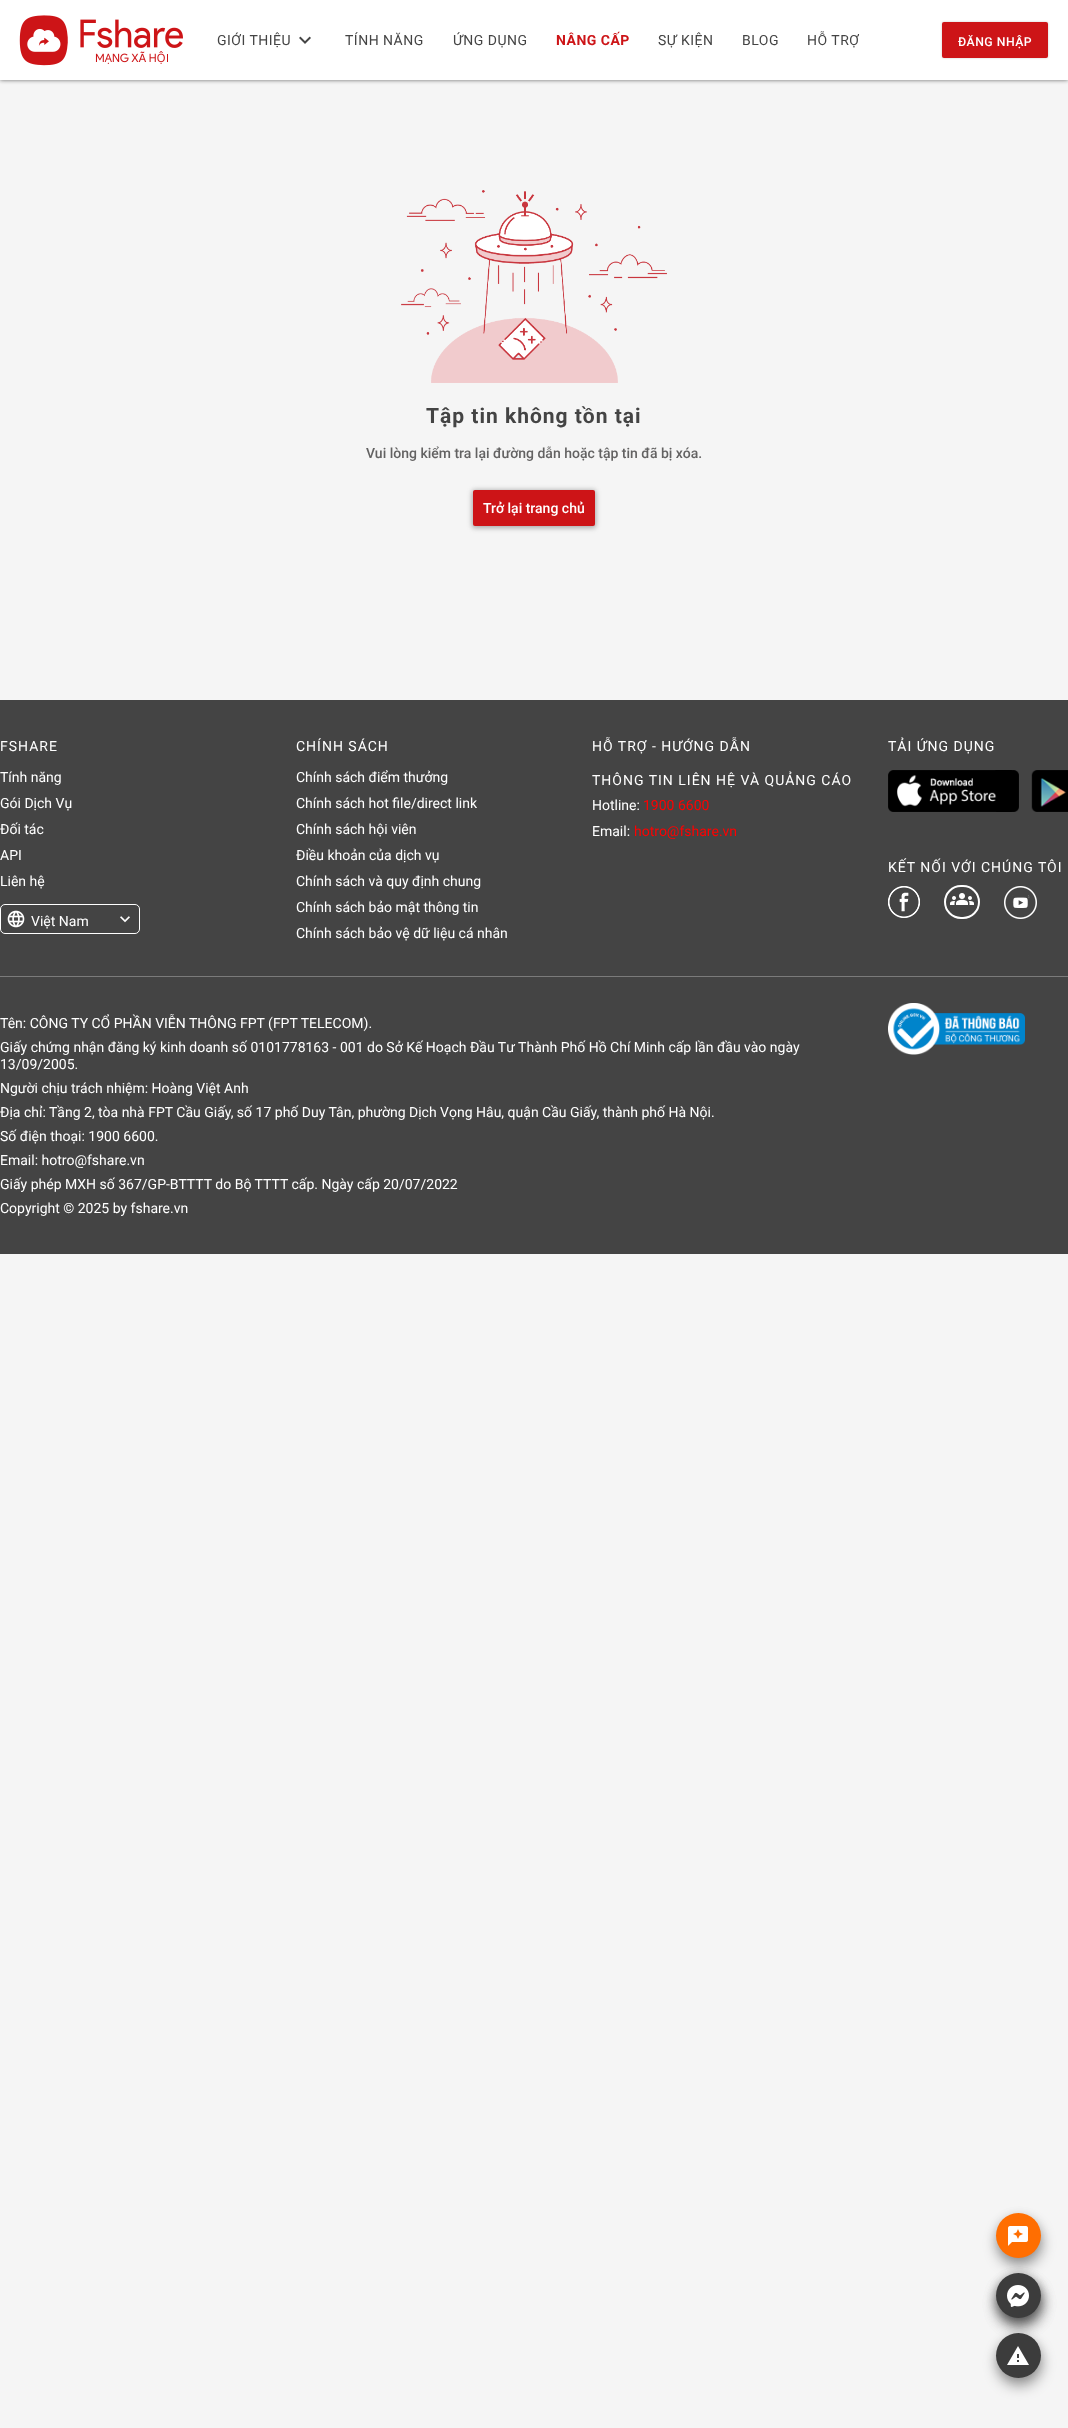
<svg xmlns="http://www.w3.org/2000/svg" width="1068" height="2428">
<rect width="100%" height="100%" fill="#f5f5f5"/>
<rect width="1068" height="80" fill="#666" filter="blur(2px)"/>
<rect width="1068" height="80" fill="#fff"/>
<image x="19" y="15" width="164" height="51" href="media/1.png"/>
<text x="217" y="45" style="font-family:Roboto;font-size:14px;letter-spacing:0.5px;fill:#444">GIỚI THIỆU</text>
<image x="299" y="36" width="12" height="8" href="media/2.png"/>
<text x="345" y="45" style="font-family:Roboto;font-size:14px;letter-spacing:0.5px;fill:#444">TÍNH NĂNG</text>
<text x="453" y="45" style="font-family:Roboto;font-size:14px;letter-spacing:0.5px;fill:#444">ỨNG DỤNG</text>
<text x="556" y="45" style="font-family:Roboto;font-size:14px;font-weight:bold;letter-spacing:0.5px;fill:#cd1417">NÂNG CẤP</text>
<text x="658" y="45" style="font-family:Roboto;font-size:14px;letter-spacing:0.5px;fill:#444">SỰ KIỆN</text>
<text x="742" y="45" style="font-family:Roboto;font-size:14px;letter-spacing:0.5px;fill:#444">BLOG</text>
<text x="807" y="45" style="font-family:Roboto;font-size:14px;letter-spacing:0.5px;fill:#444">HỖ TRỢ</text>
<rect x="942" y="22" width="106" height="36" rx="2" fill="#ccc" filter="blur(1px)"/>
<rect x="942" y="22" width="106" height="36" rx="2" fill="#cd1417"/>
<text x="958" y="46" style="font-family:Roboto;font-size:12.25px;font-weight:500;letter-spacing:0.5px;fill:#fff">ĐĂNG NHẬP</text>
<image x="401" y="190" width="266" height="193" href="media/3.png"/>
<text x="426" y="423" style="font-family:Roboto;font-size:21px;font-weight:bold;letter-spacing:1px;fill:#444">Tập tin không tồn tại</text>
<text x="366" y="458" style="font-family:Roboto;font-size:14px;font-weight:500;fill:#636262">Vui lòng kiểm tra lại đường dẫn hoặc tập tin đã bị xóa.</text>
<rect x="472" y="490" width="124" height="38" rx="3" fill="#6d6d6d8f" filter="blur(2.5px)"/>
<rect x="473" y="490" width="122" height="36" rx="2" fill="#cd1417"/>
<text x="483" y="513" style="font-family:Roboto;font-size:14px;font-weight:500;fill:#fff">Trở lại trang chủ</text>
<rect y="700" width="1068" height="554" fill="#444"/>
<text x="0" y="751" style="font-family:Roboto;font-size:14px;letter-spacing:1px;fill:#fff">FSHARE</text>
<text x="0" y="782" style="font-family:Roboto;font-size:14px;fill:#fff">Tính năng</text>
<text x="0" y="808" style="font-family:Roboto;font-size:14px;fill:#fff">Gói Dịch Vụ</text>
<text x="0" y="834" style="font-family:Roboto;font-size:14px;fill:#fff">Đối tác</text>
<text x="0" y="860" style="font-family:Roboto;font-size:14px;fill:#fff">API</text>
<text x="0" y="886" style="font-family:Roboto;font-size:14px;fill:#fff">Liên hệ</text>
<rect x="0.5" y="904.5" width="139" height="29" rx="4.5" fill="none" stroke="#fff"/>
<image x="7" y="910" width="18" height="18" href="media/4.png"/>
<text x="31" y="926" style="font-family:Roboto;font-size:14px;fill:#fff">Việt Nam</text>
<image x="120" y="916" width="10" height="7" href="media/5.png"/>
<text x="296" y="751" style="font-family:Roboto;font-size:14px;letter-spacing:1px;fill:#fff">CHÍNH SÁCH</text>
<text x="296" y="782" style="font-family:Roboto;font-size:14px;fill:#fff">Chính sách điểm thưởng</text>
<text x="296" y="808" style="font-family:Roboto;font-size:14px;fill:#fff">Chính sách hot file/direct link</text>
<text x="296" y="834" style="font-family:Roboto;font-size:14px;fill:#fff">Chính sách hội viên</text>
<text x="296" y="860" style="font-family:Roboto;font-size:14px;fill:#fff">Điều khoản của dịch vụ</text>
<text x="296" y="886" style="font-family:Roboto;font-size:14px;fill:#fff">Chính sách và quy định chung</text>
<text x="296" y="912" style="font-family:Roboto;font-size:14px;fill:#fff">Chính sách bảo mật thông tin</text>
<text x="296" y="938" style="font-family:Roboto;font-size:14px;fill:#fff">Chính sách bảo vệ dữ liệu cá nhân</text>
<text x="592" y="751" style="font-family:Roboto;font-size:14px;letter-spacing:1px;fill:#fff">HỖ TRỢ - HƯỚNG DẪN</text>
<text x="592" y="785" style="font-family:Roboto;font-size:14px;letter-spacing:1px;fill:#fff">THÔNG TIN LIÊN HỆ VÀ QUẢNG CÁO</text>
<text x="592" y="810" style="font-family:Roboto;font-size:14px;fill:#fff">Hotline:</text>
<text x="643" y="810" style="font-family:Roboto;font-size:14px;fill:#f00">1900 6600</text>
<text x="592" y="836" style="font-family:Roboto;font-size:14px;fill:#fff">Email:</text>
<text x="634" y="836" style="font-family:Roboto;font-size:14px;fill:#f00">hotro@fshare.vn</text>
<text x="888" y="751" style="font-family:Roboto;font-size:14px;letter-spacing:1px;fill:#fff">TẢI ỨNG DỤNG</text>
<image x="888" y="770" width="131" height="42" href="media/6.png"/>
<image x="1031" y="770" width="37" height="42" href="media/7.png"/>
<text x="888" y="872" style="font-family:Roboto;font-size:14px;letter-spacing:1px;fill:#fff">KẾT NỐI VỚI CHÚNG TÔI</text>
<image x="888" y="886" width="32" height="32" href="media/8.png"/>
<rect x="945" y="886" width="34" height="32" rx="16" fill="none" stroke="#fff" stroke-width="2"/>
<image x="950" y="893" width="24" height="12" href="media/9.png"/>
<image x="1004" y="886" width="33" height="33" href="media/10.png"/>
<rect y="976" width="1068" height="1" fill="#7b7b7b"/>
<text x="0" y="1028" style="font-family:Roboto;font-size:14px;fill:#fff">Tên: CÔNG TY CỔ PHẦN VIỄN THÔNG FPT (FPT TELECOM).</text>
<text x="0" y="1052" style="font-family:Roboto;font-size:14px;fill:#fff">Giấy chứng nhận đăng ký kinh doanh số 0101778163 - 001 do Sở Kế Hoạch Đầu Tư Thành Phố Hồ Chí Minh cấp lần đầu vào ngày</text>
<text x="0" y="1069" style="font-family:Roboto;font-size:14px;fill:#fff">13/09/2005.</text>
<text x="0" y="1093" style="font-family:Roboto;font-size:14px;fill:#fff">Người chịu trách nhiệm: Hoàng Việt Anh</text>
<text x="0" y="1117" style="font-family:Roboto;font-size:14px;fill:#fff">Địa chỉ: Tầng 2, tòa nhà FPT Cầu Giấy, số 17 phố Duy Tân, phường Dịch Vọng Hâu, quận Cầu Giấy, thành phố Hà Nội.</text>
<text x="0" y="1141" style="font-family:Roboto;font-size:14px;fill:#fff">Số điện thoại: 1900 6600.</text>
<text x="0" y="1165" style="font-family:Roboto;font-size:14px;fill:#fff">Email: hotro@fshare.vn</text>
<text x="0" y="1189" style="font-family:Roboto;font-size:14px;fill:#fff">Giấy phép MXH số 367/GP-BTTTT do Bộ TTTT cấp. Ngày cấp 20/07/2022</text>
<text x="0" y="1213" style="font-family:Roboto;font-size:14px;fill:#fff">Copyright © 2025 by fshare.vn</text>
<image x="888" y="1003" width="137" height="52" href="media/11.png"/>
<rect x="996" y="2215" width="45" height="45" rx="22.5" fill="#0000001f" filter="blur(5px)"/>
<rect x="997" y="2221" width="45" height="45" rx="22.5" fill="#0000005c" filter="blur(7px)"/>
<circle cx="1018.5" cy="2235.5" r="22.5" fill="#ff6e01"/>
<image x="1008" y="2226" width="20" height="20" href="media/12.png"/>
<rect x="996" y="2275" width="45" height="45" rx="22.5" fill="#0000001f" filter="blur(5px)"/>
<rect x="997" y="2281" width="45" height="45" rx="22.5" fill="#0000005c" filter="blur(7px)"/>
<rect x="996" y="2275" width="45" height="45" rx="22.5" fill="#0000001f" filter="blur(5px)"/>
<rect x="997" y="2281" width="45" height="45" rx="22.5" fill="#0000005c" filter="blur(7px)"/>
<circle cx="1018.5" cy="2295.5" r="22.5" fill="#3c3c3c"/>
<image x="1007" y="2285" width="22" height="22" href="media/13.png"/>
<rect x="996" y="2335" width="45" height="45" rx="22.5" fill="#0000001f" filter="blur(5px)"/>
<rect x="997" y="2341" width="45" height="45" rx="22.5" fill="#0000005c" filter="blur(7px)"/>
<circle cx="1018.5" cy="2355.5" r="22.5" fill="#3c3c3c"/>
<image x="1007" y="2346" width="22" height="19" href="media/14.png"/>
</svg>
